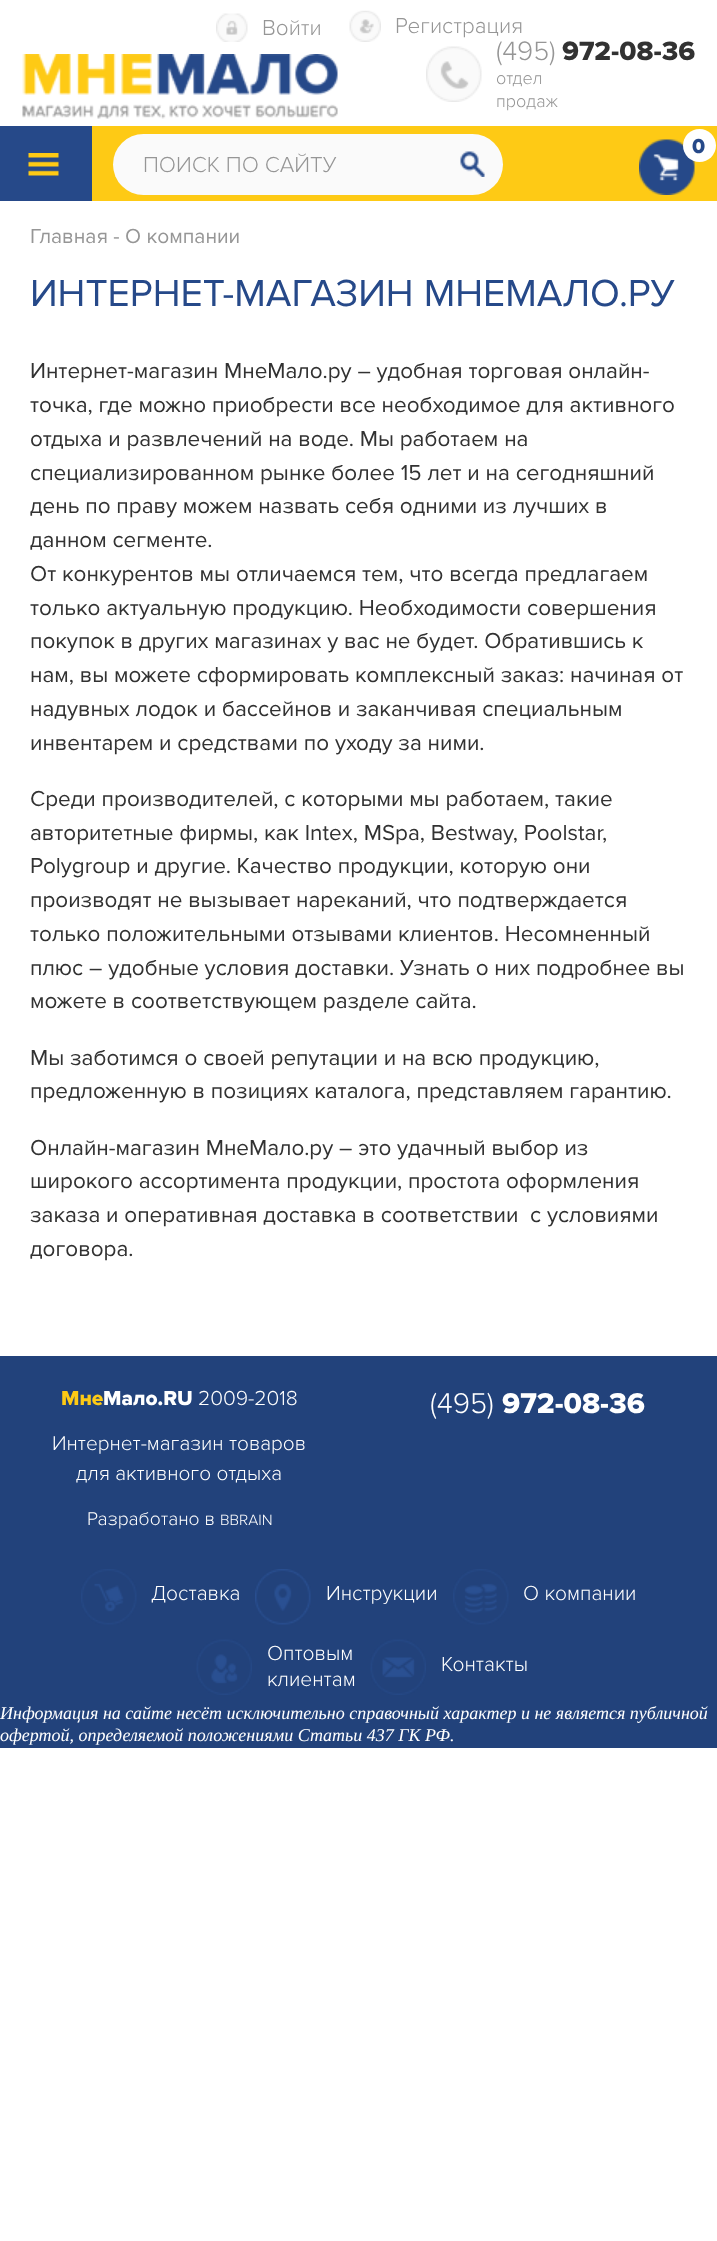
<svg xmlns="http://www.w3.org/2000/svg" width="717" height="2241">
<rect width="100%" height="100%" fill="#fff"/>
<image x="22" y="54" width="316" height="65" href="media/1.png"/>
<image x="216" y="13" width="32" height="29" href="media/2.png"/>
<text x="262" y="35" style="font-family:Proxima Nova;font-size:22.5px;font-weight:300;fill:#969696">Войти</text>
<image x="349" y="10" width="32" height="32" href="media/3.png"/>
<text x="395" y="33" style="font-family:Proxima Nova;font-size:22.5px;font-weight:300;fill:#969696">Регистрация</text>
<image x="426" y="46" width="56" height="56" href="media/4.png"/>
<text x="496" y="60" style="font-family:Proxima Nova;font-size:27.5px;font-weight:300;fill:#969696">(495)</text>
<text x="562" y="60" style="font-family:Proxima Nova;font-size:27.5px;font-weight:800;fill:#323232">972-08-36</text>
<text x="496" y="84" style="font-family:Proxima Nova;font-size:18px;font-weight:300;fill:#969696">отдел</text>
<text x="496" y="107" style="font-family:Proxima Nova;font-size:18px;font-weight:300;fill:#969696">продаж</text>
<rect x="92" y="126" width="625" height="75" fill="#feca15"/>
<rect y="126" width="92" height="75" fill="#264989"/>
<image x="28" y="153" width="31" height="23" href="media/5.png"/>
<image x="639" y="139" width="56" height="56" href="media/6.png"/>
<circle cx="699.5" cy="145.5" r="16.5" fill="#fff"/>
<text x="692" y="153" style="font-family:Proxima Nova;font-size:21px;font-weight:800;fill:#264989">0</text>
<rect x="113" y="134" width="390" height="61" rx="30.5" fill="#fafafa"/>
<text x="143" y="172" style="font-family:Proxima Nova;font-size:22.5px;font-weight:300;fill:#969696">ПОИСК ПО САЙТУ</text>
<image x="460" y="151" width="25" height="26" href="media/7.png"/>
<text x="30" y="243" style="font-family:Proxima Nova;font-size:21px;fill:#969696">Главная - О компании</text>
<text x="30" y="306" style="font-family:Proxima Nova;font-size:39px;fill:#264989">ИНТЕРНЕТ-МАГАЗИН МНЕМАЛО.РУ</text>
<text x="30" y="378" style="font-family:Proxima Nova;font-size:22.5px;fill:#323232">Интернет-магазин МнеМало.ру – удобная торговая онлайн-</text>
<text x="30" y="412" style="font-family:Proxima Nova;font-size:22.5px;fill:#323232">точка, где можно приобрести все необходимое для активного</text>
<text x="30" y="446" style="font-family:Proxima Nova;font-size:22.5px;fill:#323232">отдыха и развлечений на воде. Мы работаем на</text>
<text x="30" y="480" style="font-family:Proxima Nova;font-size:22.5px;fill:#323232">специализированном рынке более 15 лет и на сегодняшний</text>
<text x="30" y="513" style="font-family:Proxima Nova;font-size:22.5px;fill:#323232">день по праву можем назвать себя одними из лучших в</text>
<text x="30" y="547" style="font-family:Proxima Nova;font-size:22.5px;fill:#323232">данном сегменте.</text>
<text x="30" y="581" style="font-family:Proxima Nova;font-size:22.5px;fill:#323232">От конкурентов мы отличаемся тем, что всегда предлагаем</text>
<text x="30" y="615" style="font-family:Proxima Nova;font-size:22.5px;fill:#323232">только актуальную продукцию. Необходимости совершения</text>
<text x="30" y="648" style="font-family:Proxima Nova;font-size:22.5px;fill:#323232">покупок в других магазинах у вас не будет. Обратившись к</text>
<text x="30" y="682" style="font-family:Proxima Nova;font-size:22.5px;fill:#323232">нам, вы можете сформировать комплексный заказ: начиная от</text>
<text x="30" y="716" style="font-family:Proxima Nova;font-size:22.5px;fill:#323232">надувных лодок и бассейнов и заканчивая специальным</text>
<text x="30" y="750" style="font-family:Proxima Nova;font-size:22.5px;fill:#323232">инвентарем и средствами по уходу за ними.</text>
<text x="30" y="806" style="font-family:Proxima Nova;font-size:22.5px;fill:#323232">Среди производителей, с которыми мы работаем, такие</text>
<text x="30" y="840" style="font-family:Proxima Nova;font-size:22.5px;fill:#323232">авторитетные фирмы, как Intex, MSpa, Bestway, Poolstar,</text>
<text x="30" y="873" style="font-family:Proxima Nova;font-size:22.5px;fill:#323232">Polygroup и другие. Качество продукции, которую они</text>
<text x="30" y="907" style="font-family:Proxima Nova;font-size:22.5px;fill:#323232">производят не вызывает нареканий, что подтверждается</text>
<text x="30" y="941" style="font-family:Proxima Nova;font-size:22.5px;fill:#323232">только положительными отзывами клиентов. Несомненный</text>
<text x="30" y="975" style="font-family:Proxima Nova;font-size:22.5px;fill:#323232">плюс – удобные условия доставки. Узнать о них подробнее вы</text>
<text x="30" y="1008" style="font-family:Proxima Nova;font-size:22.5px;fill:#323232">можете в соответствующем разделе сайта.</text>
<text x="30" y="1065" style="font-family:Proxima Nova;font-size:22.5px;fill:#323232">Мы заботимся о своей репутации и на всю продукцию,</text>
<text x="30" y="1098" style="font-family:Proxima Nova;font-size:22.5px;fill:#323232">предложенную в позициях каталога, представляем гарантию.</text>
<text x="30" y="1155" style="font-family:Proxima Nova;font-size:22.5px;fill:#323232">Онлайн-магазин МнеМало.ру – это удачный выбор из</text>
<text x="30" y="1188" style="font-family:Proxima Nova;font-size:22.5px;fill:#323232">широкого ассортимента продукции, простота оформления</text>
<text x="30" y="1222" style="font-family:Proxima Nova;font-size:22.5px;fill:#323232" xml:space="preserve">заказа и оперативная доставка в соответствии  с условиями</text>
<text x="30" y="1256" style="font-family:Proxima Nova;font-size:22.5px;fill:#323232">договора.</text>
<rect y="1356" width="717" height="392" fill="#22427b"/>
<text x="61" y="1405" style="font-family:Proxima Nova;font-size:21px;font-weight:800;fill:#feca15">Мне</text>
<text x="103" y="1405" style="font-family:Proxima Nova;font-size:21px;font-weight:800;fill:#fff">Мало.RU</text>
<text x="198" y="1405" style="font-family:Proxima Nova;font-size:21px;font-weight:300;fill:#fff">2009-2018</text>
<text x="52" y="1450" style="font-family:Proxima Nova;font-size:20.8px;font-weight:300;fill:#fff">Интернет-магазин товаров</text>
<text x="76" y="1480" style="font-family:Proxima Nova;font-size:20.8px;font-weight:300;fill:#fff">для активного отдыха</text>
<text x="87" y="1525" style="font-family:Proxima Nova;font-size:19.25px;font-weight:300;fill:#fff">Разработано в</text>
<text x="220" y="1525" style="font-family:Proxima Nova;font-size:15.5px;font-weight:300;fill:#fff">BBRAIN</text>
<text x="430" y="1413" style="font-family:Proxima Nova;font-size:29.5px;font-weight:300;fill:#fff">(495)</text>
<text x="502" y="1413" style="font-family:Proxima Nova;font-size:29.5px;font-weight:800;fill:#fff">972-08-36</text>
<image x="81" y="1569" width="56" height="56" href="media/8.png"/>
<text x="151" y="1600" style="font-family:Proxima Nova;font-size:21px;font-weight:300;fill:#fff">Доставка</text>
<image x="255" y="1569" width="56" height="56" href="media/9.png"/>
<text x="326" y="1600" style="font-family:Proxima Nova;font-size:21px;font-weight:300;fill:#fff">Инструкции</text>
<image x="453" y="1569" width="56" height="56" href="media/10.png"/>
<text x="523" y="1600" style="font-family:Proxima Nova;font-size:21px;font-weight:300;fill:#fff">О компании</text>
<image x="196" y="1639" width="56" height="56" href="media/11.png"/>
<text x="267" y="1660" style="font-family:Proxima Nova;font-size:21px;font-weight:300;fill:#fff">Оптовым</text>
<text x="267" y="1686" style="font-family:Proxima Nova;font-size:21px;font-weight:300;fill:#fff">клиентам</text>
<image x="370" y="1639" width="56" height="56" href="media/12.png"/>
<text x="441" y="1671" style="font-family:Proxima Nova;font-size:21px;font-weight:300;fill:#fff">Контакты</text>
<text x="0" y="1719" style="font-family:Liberation Serif;font-size:18px;font-style:italic;fill:#fff">Информация на сайте несёт исключительно справочный характер и не является публичной</text>
<text x="0" y="1741" style="font-family:Liberation Serif;font-size:18px;font-style:italic;fill:#fff">офертой, определяемой положениями Статьи 437 ГК РФ.</text>
</svg>
